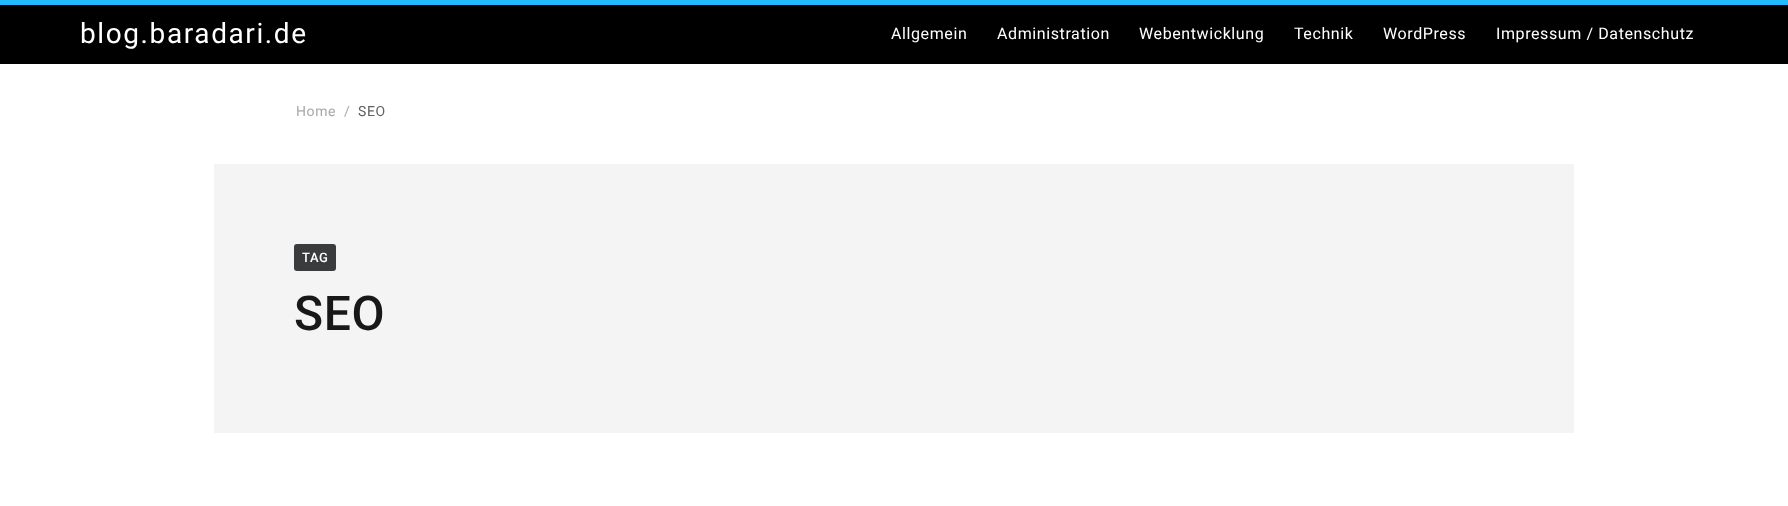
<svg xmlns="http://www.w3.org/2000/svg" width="1788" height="506">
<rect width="100%" height="100%" fill="#fff"/>
<rect y="5" width="1788" height="59" fill="#000"/>
<rect width="1788" height="5" fill="#24baff"/>
<text x="80" y="43" style="font-family:Roboto;font-size:28px;letter-spacing:1.6px;fill:#fff">blog.baradari.de</text>
<text x="891" y="39" style="font-family:Roboto;font-size:16px;letter-spacing:0.6px;fill:#fff">Allgemein</text>
<text x="997" y="39" style="font-family:Roboto;font-size:16px;letter-spacing:0.6px;fill:#fff">Administration</text>
<text x="1139" y="39" style="font-family:Roboto;font-size:16px;letter-spacing:0.6px;fill:#fff">Webentwicklung</text>
<text x="1294" y="39" style="font-family:Roboto;font-size:16px;letter-spacing:0.6px;fill:#fff">Technik</text>
<text x="1383" y="39" style="font-family:Roboto;font-size:16px;letter-spacing:0.6px;fill:#fff">WordPress</text>
<text x="1496" y="39" style="font-family:Roboto;font-size:16px;letter-spacing:0.6px;fill:#fff">Impressum / Datenschutz</text>
<text x="296" y="116" style="font-family:Roboto;font-size:14px;letter-spacing:0.6px;fill:#a8a8a8">Home</text>
<text x="344" y="116" style="font-family:Roboto;font-size:14px;letter-spacing:0.6px;fill:#a8a8a8">/</text>
<text x="358" y="116" style="font-family:Roboto;font-size:14px;letter-spacing:0.6px;fill:#616161">SEO</text>
<rect x="214" y="164" width="1360" height="269" fill="#f4f4f4"/>
<rect x="294" y="244" width="42" height="27" rx="3" fill="#3a3b3c"/>
<text x="302" y="262" style="font-family:Roboto;font-size:13px;font-weight:500;letter-spacing:0.6px;fill:#fff">TAG</text>
<text x="294" y="330" style="font-family:Roboto;font-size:48px;font-weight:500;letter-spacing:0.6px;fill:#181818">SEO</text>
</svg>
